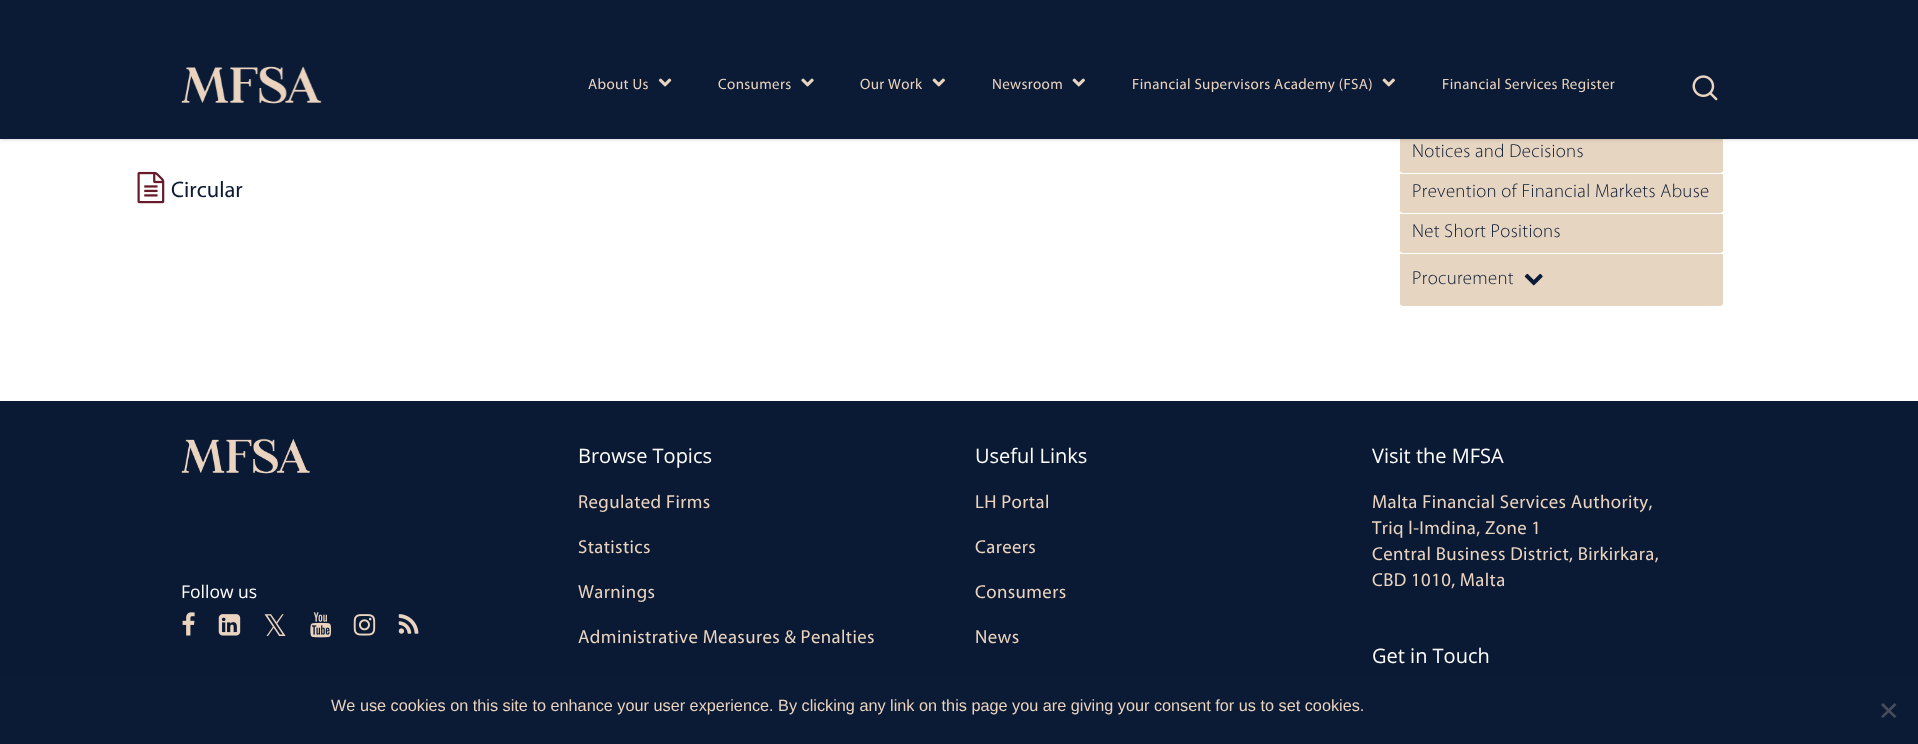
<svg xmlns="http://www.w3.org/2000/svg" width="1918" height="744">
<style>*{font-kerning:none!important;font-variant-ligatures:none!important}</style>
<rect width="100%" height="100%" fill="#fff"/>
<path d="M1399 133h325v35c0 3-2 5-5 5h-315c-3 0-5-2-5-5z" fill="#e6d5c1"/>
<rect x="1723" y="133" width="1" height="37" fill="#fff"/>
<rect x="1399" y="133" width="1" height="37" fill="#fff"/>
<rect width="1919" height="139" fill="#00000038" filter="blur(2px)"/>
<rect width="1918" height="139" fill="#0b1a35"/>
<image x="181" y="66" width="141" height="38" href="media/1.png"/>
<text x="588" y="89" style="font-family:Myriad;font-size:15px;letter-spacing:0.35px;fill:#ead4bf">About Us</text>
<image x="658" y="78" width="14" height="9" href="media/2.png"/>
<text x="718" y="89" style="font-family:Myriad;font-size:15px;letter-spacing:0.35px;fill:#ead4bf">Consumers</text>
<image x="801" y="78" width="13" height="9" href="media/3.png"/>
<text x="860" y="89" style="font-family:Myriad;font-size:15px;letter-spacing:0.35px;fill:#ead4bf">Our Work</text>
<image x="932" y="78" width="13" height="9" href="media/4.png"/>
<text x="992" y="89" style="font-family:Myriad;font-size:15px;letter-spacing:0.35px;fill:#ead4bf">Newsroom</text>
<image x="1072" y="78" width="13" height="9" href="media/4.png"/>
<text x="1132" y="89" style="font-family:Myriad;font-size:15px;letter-spacing:0.35px;fill:#ead4bf">Financial Supervisors Academy (FSA)</text>
<image x="1382" y="78" width="13" height="9" href="media/4.png"/>
<text x="1442" y="89" style="font-family:Myriad;font-size:15px;letter-spacing:0.35px;fill:#ead4bf">Financial Services Register</text>
<image x="1692" y="75" width="26" height="26" href="media/5.png"/>
<image x="137" y="171" width="28" height="33" href="media/6.png"/>
<text x="171" y="197" style="font-family:Myriad;font-size:22.5px;fill:#0b1a35">Circular</text>
<text x="1412" y="157" style="font-family:Myriad;font-size:18.75px;font-weight:300;letter-spacing:0.35px;fill:#0b1a35">Notices and Decisions</text>
<path d="M1399 173h325v35c0 3-2 5-5 5h-315c-3 0-5-2-5-5z" fill="#e6d5c1"/>
<rect x="1399" y="173" width="325" height="1" fill="#fff"/>
<rect x="1723" y="173" width="1" height="37" fill="#fff"/>
<rect x="1399" y="173" width="1" height="37" fill="#fff"/>
<text x="1412" y="197" style="font-family:Myriad;font-size:18.75px;font-weight:300;letter-spacing:0.35px;fill:#0b1a35">Prevention of Financial Markets Abuse</text>
<path d="M1399 213h325v35c0 3-2 5-5 5h-315c-3 0-5-2-5-5z" fill="#e6d5c1"/>
<rect x="1399" y="213" width="325" height="1" fill="#fff"/>
<rect x="1723" y="213" width="1" height="37" fill="#fff"/>
<rect x="1399" y="213" width="1" height="37" fill="#fff"/>
<text x="1412" y="237" style="font-family:Myriad;font-size:18.75px;font-weight:300;letter-spacing:0.35px;fill:#0b1a35">Net Short Positions</text>
<path d="M1399 253h325v48c0 3-2 5-5 5h-315c-3 0-5-2-5-5z" fill="#e6d5c1"/>
<rect x="1399" y="253" width="325" height="1" fill="#fff"/>
<rect x="1723" y="253" width="1" height="51" fill="#fff"/>
<rect x="1399" y="253" width="1" height="51" fill="#fff"/>
<text x="1412" y="284" style="font-family:Myriad;font-size:18.75px;font-weight:300;letter-spacing:0.35px;fill:#0b1a35">Procurement</text>
<image x="1524" y="273" width="19" height="13" href="media/7.png"/>
<rect y="401" width="1918" height="274" fill="#0b1a34"/>
<image x="181" y="438" width="129" height="36" href="media/8.png"/>
<text x="181" y="598" style="font-family:Open Sans;font-size:17.5px;fill:#fff">Follow us</text>
<image x="182" y="612" width="13" height="24" href="media/9.png"/>
<image x="218" y="614" width="23" height="22" href="media/10.png"/>
<text x="263" y="636" style="font-family:DejaVu Sans;font-size:30px;fill:#ead4bf">𝕏</text>
<image x="310" y="612" width="22" height="26" href="media/11.png"/>
<image x="353" y="614" width="23" height="22" href="media/12.png"/>
<image x="398" y="614" width="21" height="20" href="media/13.png"/>
<text x="578" y="463" style="font-family:Open Sans;font-size:20px;fill:#fff">Browse Topics</text>
<text x="578" y="508" style="font-family:Myriad;font-size:18.75px;letter-spacing:0.4px;fill:#ead4bf">Regulated Firms</text>
<text x="578" y="553" style="font-family:Myriad;font-size:18.75px;letter-spacing:0.4px;fill:#ead4bf">Statistics</text>
<text x="578" y="598" style="font-family:Myriad;font-size:18.75px;letter-spacing:0.4px;fill:#ead4bf">Warnings</text>
<text x="578" y="643" style="font-family:Myriad;font-size:18.75px;letter-spacing:0.4px;fill:#ead4bf">Administrative Measures &amp; Penalties</text>
<text x="975" y="463" style="font-family:Open Sans;font-size:20px;fill:#fff">Useful Links</text>
<text x="975" y="508" style="font-family:Myriad;font-size:18.75px;letter-spacing:0.4px;fill:#ead4bf">LH Portal</text>
<text x="975" y="553" style="font-family:Myriad;font-size:18.75px;letter-spacing:0.4px;fill:#ead4bf">Careers</text>
<text x="975" y="598" style="font-family:Myriad;font-size:18.75px;letter-spacing:0.4px;fill:#ead4bf">Consumers</text>
<text x="975" y="643" style="font-family:Myriad;font-size:18.75px;letter-spacing:0.4px;fill:#ead4bf">News</text>
<text x="1372" y="463" style="font-family:Open Sans;font-size:20px;fill:#fff">Visit the MFSA</text>
<text x="1372" y="508" style="font-family:Myriad;font-size:18.75px;letter-spacing:0.4px;fill:#ead4bf">Malta Financial Services Authority,</text>
<text x="1372" y="534" style="font-family:Myriad;font-size:18.75px;letter-spacing:0.4px;fill:#ead4bf">Triq l-Imdina, Zone 1</text>
<text x="1372" y="560" style="font-family:Myriad;font-size:18.75px;letter-spacing:0.4px;fill:#ead4bf">Central Business District, Birkirkara,</text>
<text x="1372" y="586" style="font-family:Myriad;font-size:18.75px;letter-spacing:0.4px;fill:#ead4bf">CBD 1010, Malta</text>
<text x="1372" y="663" style="font-family:Open Sans;font-size:20px;fill:#fff">Get in Touch</text>
<rect y="675" width="1918" height="69" fill="#0b1a35"/>
<text x="331" y="711" style="font-family:Liberation Sans;font-size:16.25px;fill:#ead4bf">We use cookies on this site to enhance your user experience. By clicking any link on this page you are giving your consent for us to set cookies.</text>
<path d="M1894.5 703l2 2l-13.5 13l-2-1.5z" fill="#464d5b"/>
<path d="M1881 705l2-2l13.5 13.5l-2 1.5z" fill="#464d5b"/>
</svg>
